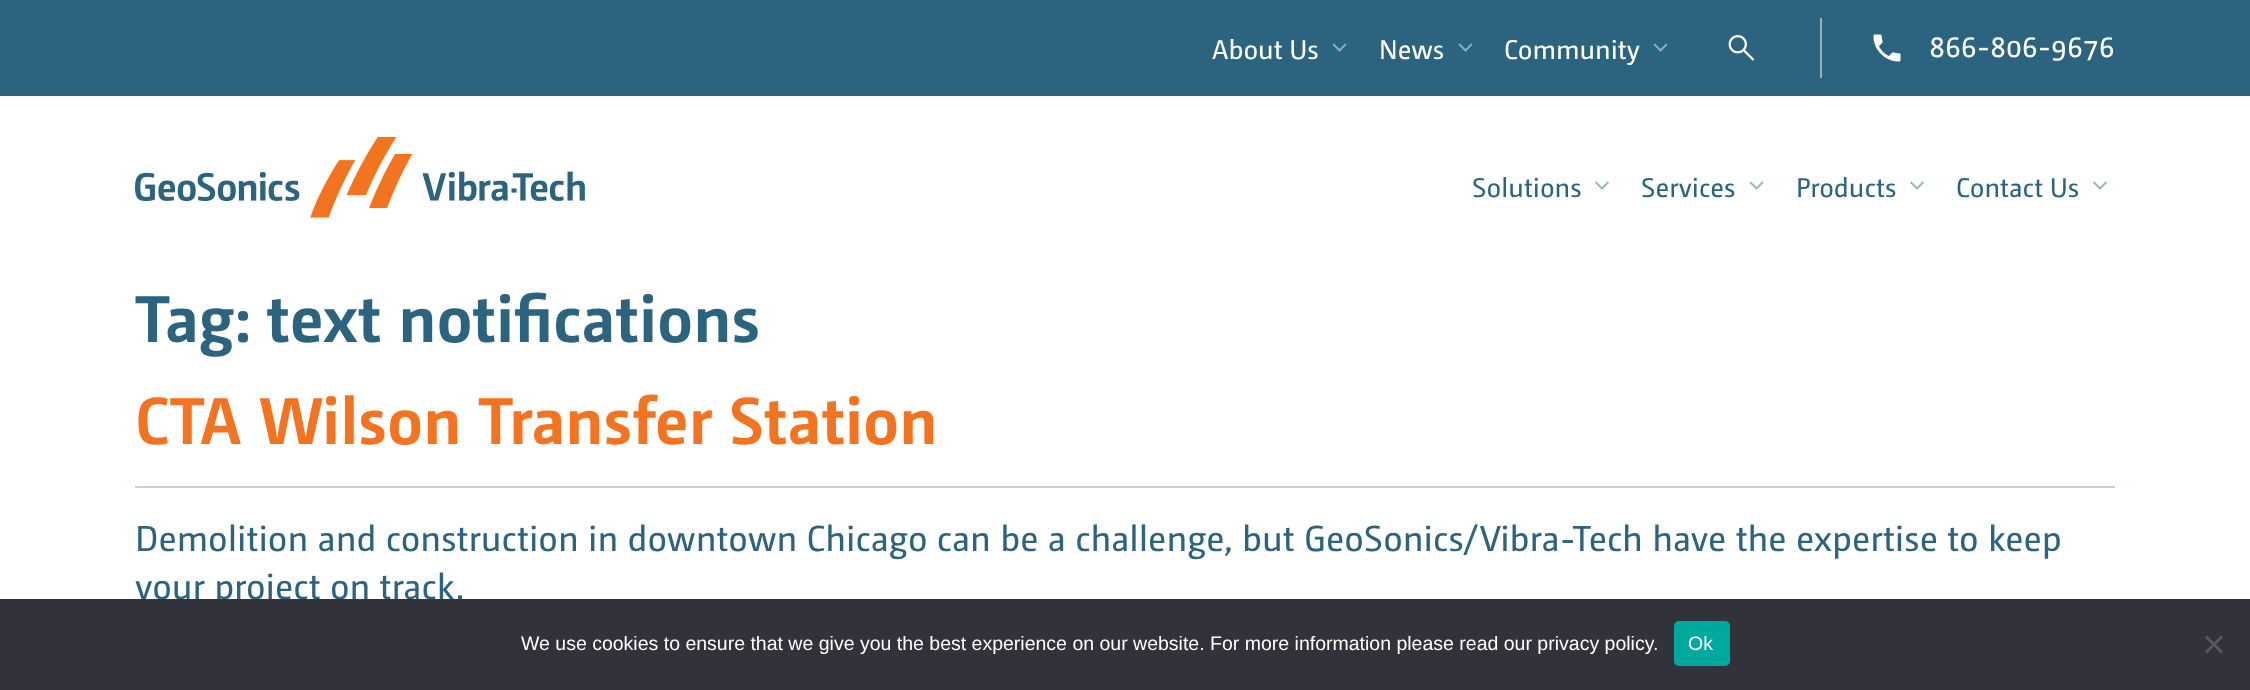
<svg xmlns="http://www.w3.org/2000/svg" width="2250" height="690">
<rect width="100%" height="100%" fill="#fff"/>
<rect width="2250" height="96" fill="#2c637f"/>
<rect x="1820" y="18" width="2" height="60" fill="#94b1be"/>
<text x="1212" y="59" style="font-family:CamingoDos;font-size:27px;fill:#fff">About Us</text>
<image x="1332" y="43" width="15" height="9" href="media/1.png"/>
<text x="1379" y="59" style="font-family:CamingoDos;font-size:27px;fill:#fff">News</text>
<image x="1458" y="43" width="15" height="9" href="media/1.png"/>
<text x="1504" y="59" style="font-family:CamingoDos;font-size:27px;fill:#fff">Community</text>
<image x="1653" y="43" width="15" height="9" href="media/1.png"/>
<image x="1728" y="35" width="27" height="26" href="media/2.png"/>
<image x="1873" y="34" width="28" height="28" href="media/3.png"/>
<text x="1929" y="57" style="font-family:CamingoDos;font-size:30px;fill:#fff">866-806-9676</text>
<image x="135" y="137" width="450" height="81" href="media/4.png"/>
<text x="1472" y="197" style="font-family:CamingoDos;font-size:27px;fill:#2c637f">Solutions</text>
<image x="1595" y="181" width="14" height="9" href="media/5.png"/>
<text x="1641" y="197" style="font-family:CamingoDos;font-size:27px;fill:#2c637f">Services</text>
<image x="1749" y="181" width="15" height="9" href="media/6.png"/>
<text x="1796" y="197" style="font-family:CamingoDos;font-size:27px;fill:#2c637f">Products</text>
<image x="1910" y="181" width="14" height="9" href="media/5.png"/>
<text x="1956" y="197" style="font-family:CamingoDos;font-size:27px;fill:#2c637f">Contact Us</text>
<image x="2093" y="181" width="14" height="9" href="media/5.png"/>
<text x="135" y="342" style="font-family:CamingoDos;font-size:66px;font-weight:bold;fill:#2c637f">Tag: text notifications</text>
<rect x="135" y="486" width="1980" height="2" fill="#c7d2d8"/>
<text x="135" y="444" style="font-family:CamingoDos;font-size:66px;font-weight:bold;fill:#f37320">CTA Wilson Transfer Station</text>
<text x="135" y="551" style="font-family:CamingoDos;font-size:36px;fill:#2c637f">Demolition and construction in downtown Chicago can be a challenge, but GeoSonics/Vibra-Tech have the expertise to keep</text>
<text x="135" y="599" style="font-family:CamingoDos;font-size:36px;fill:#2c637f">your project on track.</text>
<rect y="599" width="2250" height="91" fill="#32323a"/>
<text x="521" y="650" style="font-family:Liberation Sans;font-size:19.5px;fill:#fff">We use cookies to ensure that we give you the best experience on our website. For more information please read our privacy policy.</text>
<rect x="1674" y="621" width="56" height="45" rx="5" fill="#00a99d"/>
<text x="1688" y="650" style="font-family:Liberation Sans;font-size:19.5px;fill:#fff">Ok</text>
<path d="M2221 635.5l2 2l-16 16l-2-2z" fill="#59595d"/>
<path d="M2205 637.5l2-2l16 16l-2 2z" fill="#59595d"/>
</svg>
